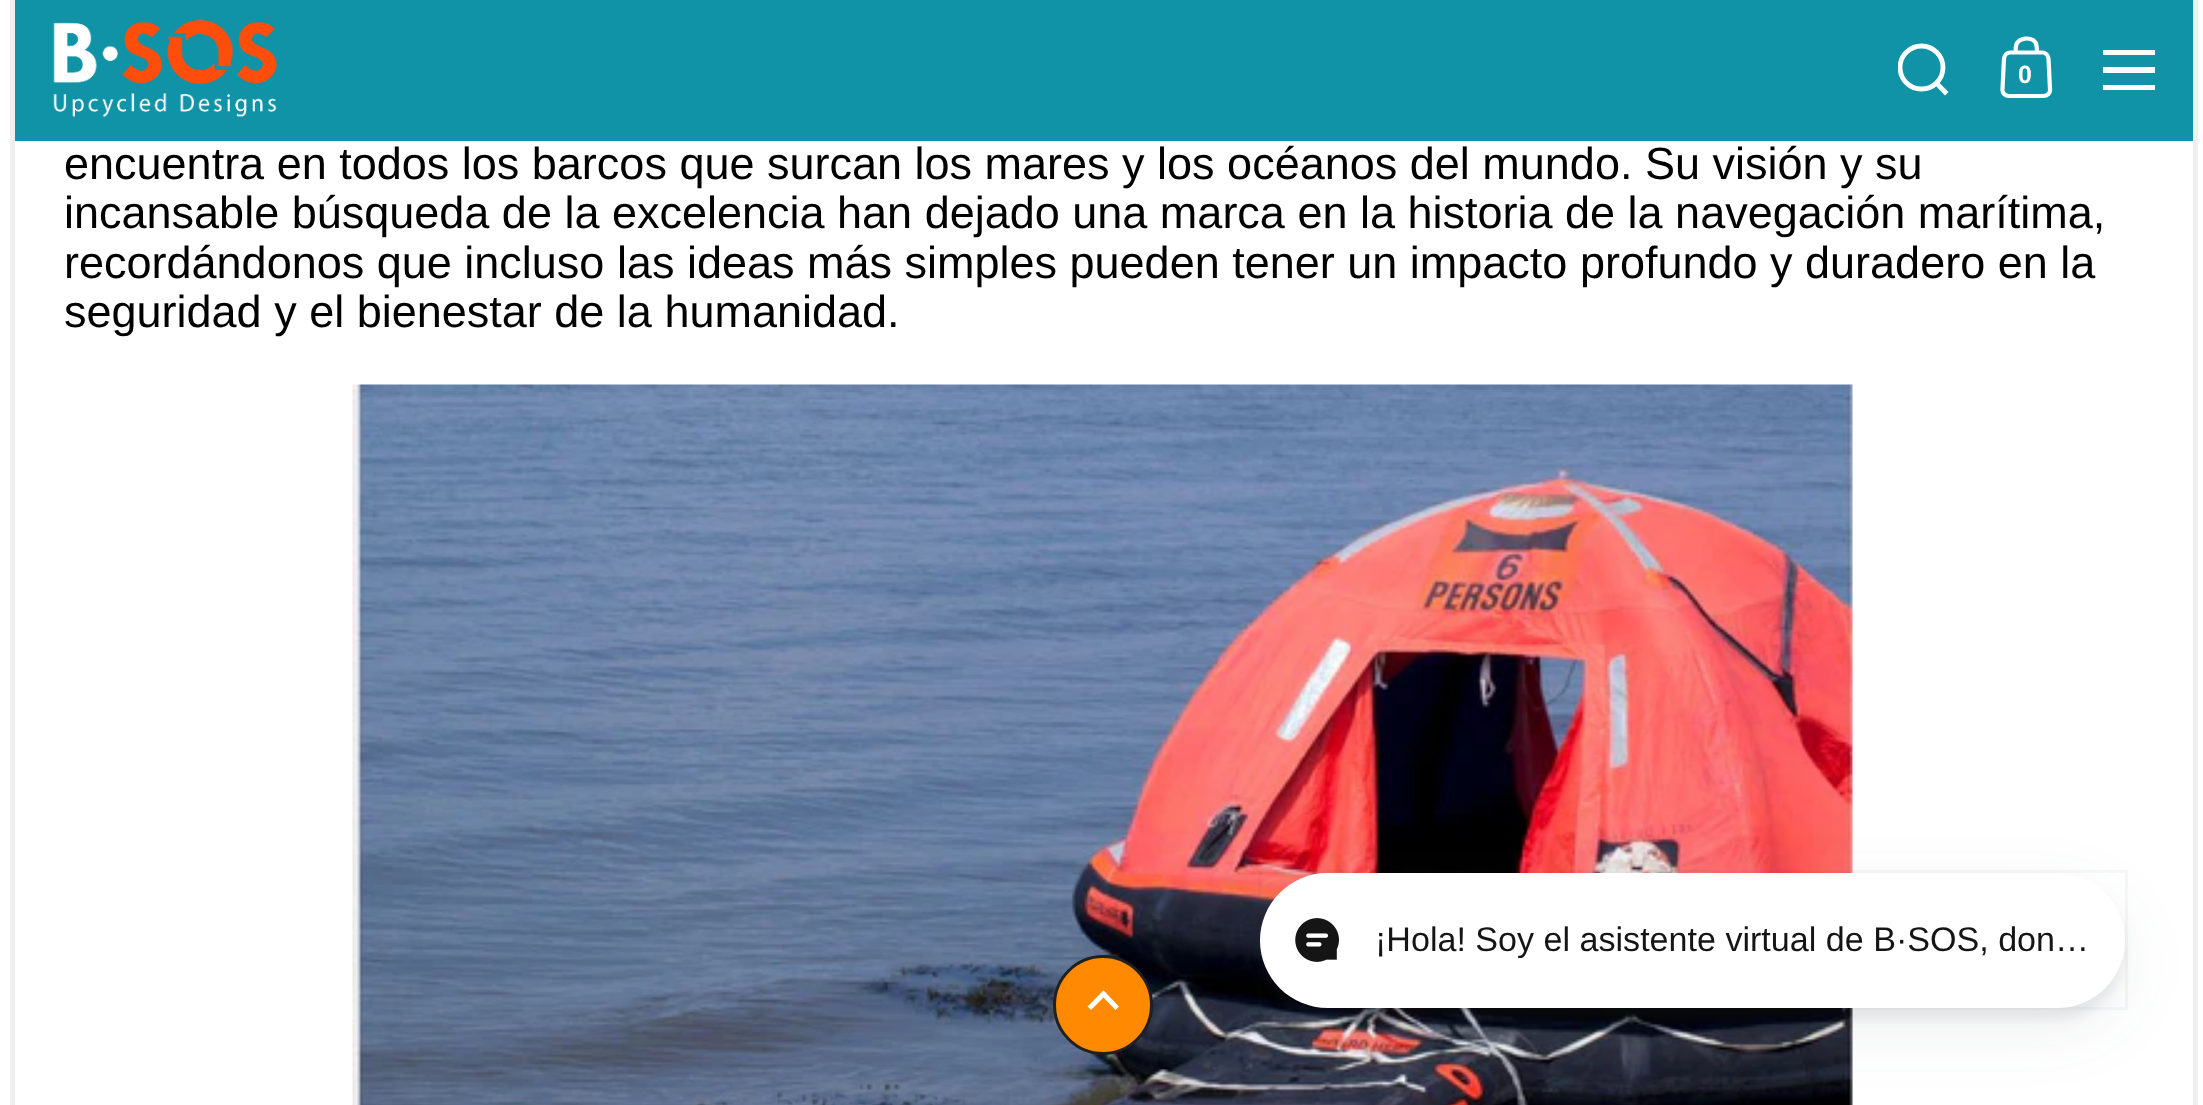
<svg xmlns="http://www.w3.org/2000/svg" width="2203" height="1105">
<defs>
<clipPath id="clip1"><rect x="1898" y="38" width="52" height="65"/></clipPath>
</defs>
<rect width="100%" height="100%" fill="#fff"/>
<rect x="12.5" y="-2.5" width="2183" height="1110" fill="none" stroke="#efefef" stroke-width="5"/>
<rect x="15" width="2178" height="141" fill="#1193a7"/>
<image x="53" y="19" width="225" height="99" href="media/1.png"/>
<g clip-path="url(#clip1)">
<circle cx="1921.5" cy="67.5" r="21.5" fill="none" stroke="#fff" stroke-width="4.8"/>
</g>
<path d="M1934 84l3-3.5l11.5 11.5l-3.5 3.5z" fill="#fff"/>
<path d="M2015.5 52.5h-5c-3.5 0-6 2.5-6.5 6l-1.5 30.5c-.5 4 2.5 7 6.5 7h34.5c4 0 7-3 6.5-7l-1.5-30.5c-.5-3.5-3-6-6.5-6h-5m-21.5 0h21.5m-21.5 0c0-3 0-5.5 1-8.5c3-6.5 14.5-7.5 19-1.5c1.5 3 1.5 6.5 1.5 10" fill="none" stroke="#fff" stroke-width="4.2"/>
<text x="2018" y="83" style="font-family:Liberation Sans;font-size:25px;font-weight:bold;fill:#fff">0</text>
<rect x="2103" y="50" width="52" height="5" fill="#fff"/>
<rect x="2103" y="67" width="52" height="6" fill="#fff"/>
<rect x="2103" y="85" width="52" height="5" fill="#fff"/>
<text x="64" y="179" style="font-family:Liberation Sans;font-size:45px;fill:#000">encuentra en todos los barcos que surcan los mares y los océanos del mundo. Su visión y su</text>
<text x="64" y="228" style="font-family:Liberation Sans;font-size:45px;fill:#000">incansable búsqueda de la excelencia han dejado una marca en la historia de la navegación marítima,</text>
<text x="64" y="278" style="font-family:Liberation Sans;font-size:45px;fill:#000">recordándonos que incluso las ideas más simples pueden tener un impacto profundo y duradero en la</text>
<text x="64" y="327" style="font-family:Liberation Sans;font-size:45px;fill:#000">seguridad y el bienestar de la humanidad.</text>
<image x="352" y="384" width="1501" height="721" href="media/2.png"/>
<circle cx="1103" cy="1005" r="48.5" fill="#ff8900" stroke="#202020" stroke-width="3"/>
<path d="M1119 1006.5l-15.5-16l-3.5 3.5l15.5 16z" fill="#fff"/>
<path d="M1091 1010l16-16l-3.5-3.5l-16 16z" fill="#fff"/>
<rect x="1260" y="893" width="865" height="137" rx="68.5" fill="#373f4714" filter="blur(31.5px)"/>
<rect x="1260" y="883" width="865" height="137" rx="68.5" fill="#373f4714" filter="blur(5px)"/>
<rect x="1259.5" y="871.5" width="867" height="137" fill="none" stroke="#373f470a" stroke-width="3"/>
<rect x="1260" y="873" width="865" height="135" rx="67.5" fill="#fff"/>
<image x="1295" y="918" width="44" height="44" href="media/3.png"/>
<text x="1375" y="951" style="font-family:Liberation Sans;font-size:34.1px;fill:#151515">¡Hola! Soy el asistente virtual de B·SOS, don…</text>
</svg>
